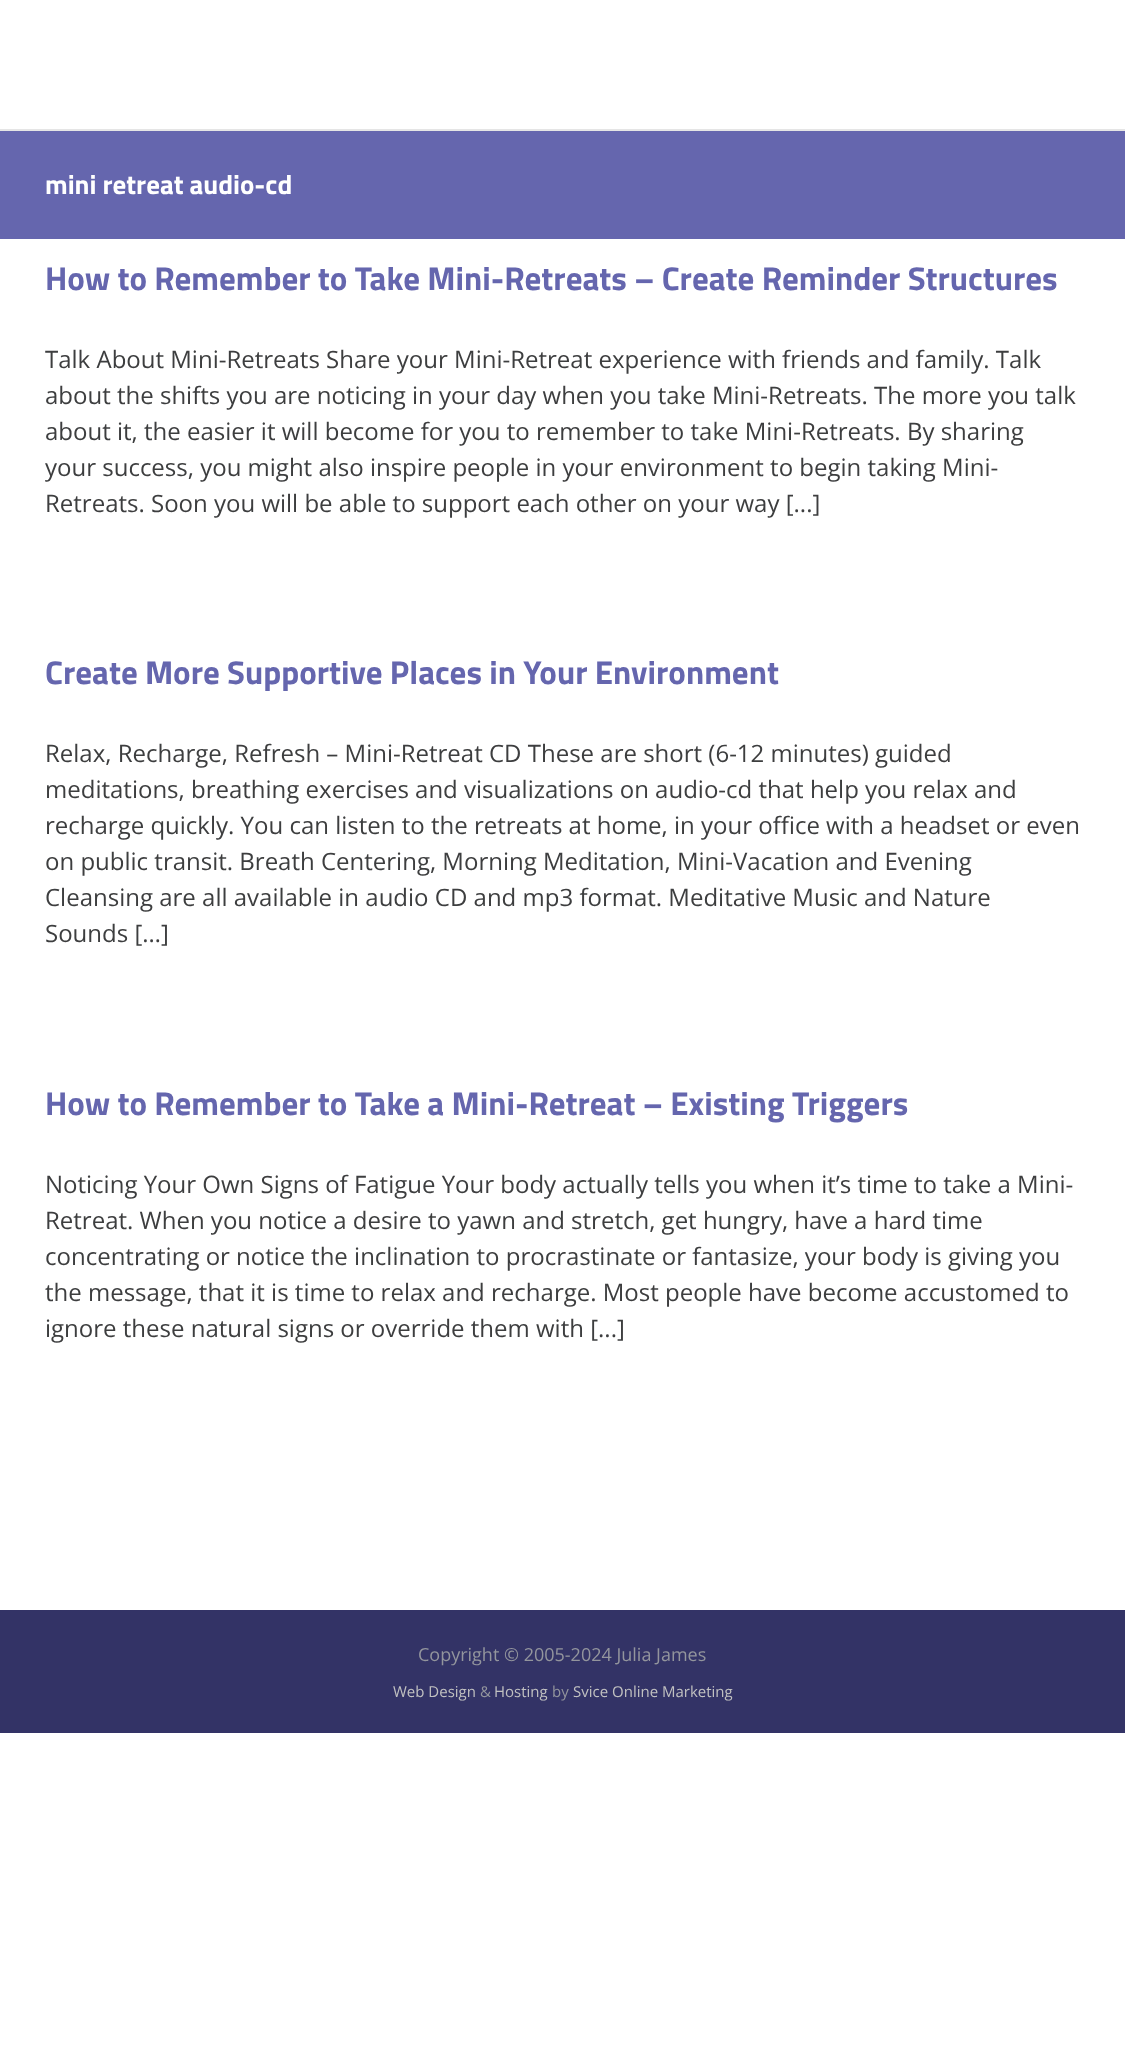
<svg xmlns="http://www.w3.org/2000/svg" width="1125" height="2053">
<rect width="100%" height="100%" fill="#fff"/>
<rect y="129" width="1125" height="2" fill="#e5e5e5"/>
<rect y="131" width="1125" height="108" fill="#6566ae"/>
<text x="45" y="194" style="font-family:Titillium Web;font-size:27px;font-weight:bold;fill:#fff">mini retreat audio-cd</text>
<text x="45" y="290" style="font-family:Titillium Web;font-size:33px;font-weight:bold;fill:#6566ae">How to Remember to Take Mini-Retreats – Create Reminder Structures</text>
<text x="45" y="368" style="font-family:Open Sans;font-size:24px;fill:#3d3e3f">Talk About Mini-Retreats Share your Mini-Retreat experience with friends and family. Talk</text>
<text x="45" y="404" style="font-family:Open Sans;font-size:24px;fill:#3d3e3f">about the shifts you are noticing in your day when you take Mini-Retreats. The more you talk</text>
<text x="45" y="440" style="font-family:Open Sans;font-size:24px;fill:#3d3e3f">about it, the easier it will become for you to remember to take Mini-Retreats. By sharing</text>
<text x="45" y="476" style="font-family:Open Sans;font-size:24px;fill:#3d3e3f">your success, you might also inspire people in your environment to begin taking Mini-</text>
<text x="45" y="512" style="font-family:Open Sans;font-size:24px;fill:#3d3e3f">Retreats. Soon you will be able to support each other on your way [...]</text>
<text x="45" y="684" style="font-family:Titillium Web;font-size:33px;font-weight:bold;fill:#6566ae">Create More Supportive Places in Your Environment</text>
<text x="45" y="762" style="font-family:Open Sans;font-size:24px;fill:#3d3e3f">Relax, Recharge, Refresh – Mini-Retreat CD These are short (6-12 minutes) guided</text>
<text x="45" y="798" style="font-family:Open Sans;font-size:24px;fill:#3d3e3f">meditations, breathing exercises and visualizations on audio-cd that help you relax and</text>
<text x="45" y="834" style="font-family:Open Sans;font-size:24px;fill:#3d3e3f">recharge quickly. You can listen to the retreats at home, in your office with a headset or even</text>
<text x="45" y="870" style="font-family:Open Sans;font-size:24px;fill:#3d3e3f">on public transit. Breath Centering, Morning Meditation, Mini-Vacation and Evening</text>
<text x="45" y="906" style="font-family:Open Sans;font-size:24px;fill:#3d3e3f">Cleansing are all available in audio CD and mp3 format. Meditative Music and Nature</text>
<text x="45" y="942" style="font-family:Open Sans;font-size:24px;fill:#3d3e3f">Sounds […]</text>
<text x="45" y="1115" style="font-family:Titillium Web;font-size:33px;font-weight:bold;fill:#6566ae">How to Remember to Take a Mini-Retreat – Existing Triggers</text>
<text x="45" y="1193" style="font-family:Open Sans;font-size:24px;fill:#3d3e3f">Noticing Your Own Signs of Fatigue Your body actually tells you when it’s time to take a Mini-</text>
<text x="45" y="1229" style="font-family:Open Sans;font-size:24px;fill:#3d3e3f">Retreat. When you notice a desire to yawn and stretch, get hungry, have a hard time</text>
<text x="45" y="1265" style="font-family:Open Sans;font-size:24px;fill:#3d3e3f">concentrating or notice the inclination to procrastinate or fantasize, your body is giving you</text>
<text x="45" y="1301" style="font-family:Open Sans;font-size:24px;fill:#3d3e3f">the message, that it is time to relax and recharge. Most people have become accustomed to</text>
<text x="45" y="1337" style="font-family:Open Sans;font-size:24px;fill:#3d3e3f">ignore these natural signs or override them with [...]</text>
<rect y="1610" width="1125" height="123" fill="#336"/>
<text x="418" y="1661" style="font-family:Open Sans;font-size:18px;fill:#93959d">Copyright © 2005-2024 Julia James</text>
<text x="393" y="1697" style="font-family:Open Sans;font-size:15px;fill:#c1c1c1">Web Design</text>
<text x="480" y="1697" style="font-family:Open Sans;font-size:15px;fill:#93959d">&amp;</text>
<text x="494" y="1697" style="font-family:Open Sans;font-size:15px;fill:#c1c1c1">Hosting</text>
<text x="552" y="1697" style="font-family:Open Sans;font-size:15px;fill:#93959d">by</text>
<text x="573" y="1697" style="font-family:Open Sans;font-size:15px;fill:#c1c1c1">Svice Online Marketing</text>
</svg>
